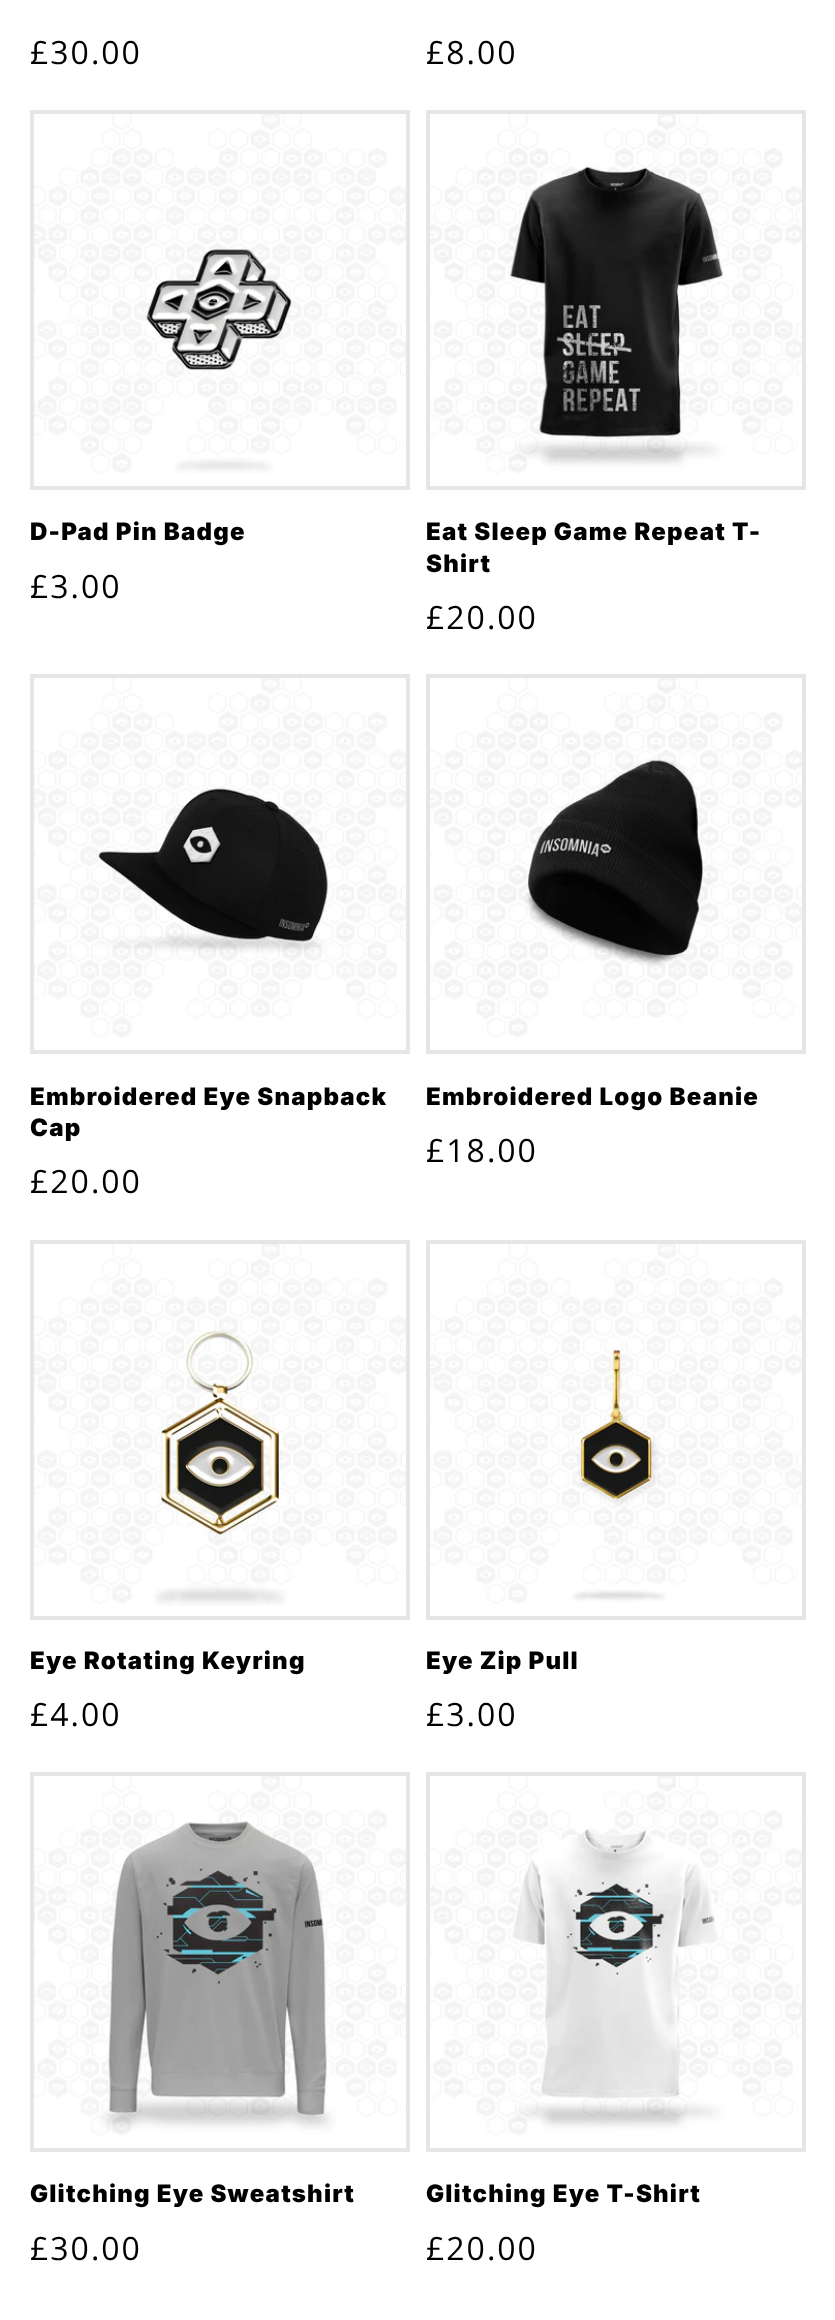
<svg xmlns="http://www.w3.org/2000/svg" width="835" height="2320">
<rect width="100%" height="100%" fill="#fff"/>
<text x="30" y="64" style="font-family:Open Sans;font-size:32px;letter-spacing:2px;fill:#000">£30.00</text>
<text x="426" y="64" style="font-family:Open Sans;font-size:32px;letter-spacing:2px;fill:#000">£8.00</text>
<rect x="32" y="112" width="376" height="376" fill="none" stroke="#e6e6e6" stroke-width="4"/>
<image x="34" y="114" width="372" height="360" href="media/1.png"/>
<text x="30" y="540" style="font-family:Inter;font-size:24px;font-weight:900;letter-spacing:1.2px;fill:#000">D-Pad Pin Badge</text>
<text x="30" y="598" style="font-family:Open Sans;font-size:32px;letter-spacing:2px;fill:#000">£3.00</text>
<rect x="428" y="112" width="376" height="376" fill="none" stroke="#e6e6e6" stroke-width="4"/>
<image x="430" y="114" width="372" height="360" href="media/2.png"/>
<text x="426" y="540" style="font-family:Inter;font-size:24px;font-weight:900;letter-spacing:1.2px;fill:#000">Eat Sleep Game Repeat T-</text>
<text x="426" y="572" style="font-family:Inter;font-size:24px;font-weight:900;letter-spacing:1.2px;fill:#000">Shirt</text>
<text x="426" y="629" style="font-family:Open Sans;font-size:32px;letter-spacing:2px;fill:#000">£20.00</text>
<rect x="32" y="676" width="376" height="376" fill="none" stroke="#e6e6e6" stroke-width="4"/>
<image x="34" y="678" width="372" height="360" href="media/3.png"/>
<text x="30" y="1105" style="font-family:Inter;font-size:24px;font-weight:900;letter-spacing:1.2px;fill:#000">Embroidered Eye Snapback</text>
<text x="30" y="1136" style="font-family:Inter;font-size:24px;font-weight:900;letter-spacing:1.2px;fill:#000">Cap</text>
<text x="30" y="1193" style="font-family:Open Sans;font-size:32px;letter-spacing:2px;fill:#000">£20.00</text>
<rect x="428" y="676" width="376" height="376" fill="none" stroke="#e6e6e6" stroke-width="4"/>
<image x="430" y="678" width="372" height="360" href="media/4.png"/>
<text x="426" y="1105" style="font-family:Inter;font-size:24px;font-weight:900;letter-spacing:1.2px;fill:#000">Embroidered Logo Beanie</text>
<text x="426" y="1162" style="font-family:Open Sans;font-size:32px;letter-spacing:2px;fill:#000">£18.00</text>
<rect x="32" y="1242" width="376" height="376" fill="none" stroke="#e6e6e6" stroke-width="4"/>
<image x="34" y="1244" width="372" height="362" href="media/5.png"/>
<text x="30" y="1669" style="font-family:Inter;font-size:24px;font-weight:900;letter-spacing:1.2px;fill:#000">Eye Rotating Keyring</text>
<text x="30" y="1726" style="font-family:Open Sans;font-size:32px;letter-spacing:2px;fill:#000">£4.00</text>
<rect x="428" y="1242" width="376" height="376" fill="none" stroke="#e6e6e6" stroke-width="4"/>
<image x="430" y="1244" width="372" height="360" href="media/6.png"/>
<text x="426" y="1669" style="font-family:Inter;font-size:24px;font-weight:900;letter-spacing:1.2px;fill:#000">Eye Zip Pull</text>
<text x="426" y="1726" style="font-family:Open Sans;font-size:32px;letter-spacing:2px;fill:#000">£3.00</text>
<rect x="32" y="1774" width="376" height="376" fill="none" stroke="#e6e6e6" stroke-width="4"/>
<image x="34" y="1776" width="372" height="360" href="media/7.png"/>
<text x="30" y="2202" style="font-family:Inter;font-size:24px;font-weight:900;letter-spacing:1.2px;fill:#000">Glitching Eye Sweatshirt</text>
<text x="30" y="2260" style="font-family:Open Sans;font-size:32px;letter-spacing:2px;fill:#000">£30.00</text>
<rect x="428" y="1774" width="376" height="376" fill="none" stroke="#e6e6e6" stroke-width="4"/>
<image x="430" y="1776" width="372" height="360" href="media/8.png"/>
<text x="426" y="2202" style="font-family:Inter;font-size:24px;font-weight:900;letter-spacing:1.2px;fill:#000">Glitching Eye T-Shirt</text>
<text x="426" y="2260" style="font-family:Open Sans;font-size:32px;letter-spacing:2px;fill:#000">£20.00</text>
</svg>
